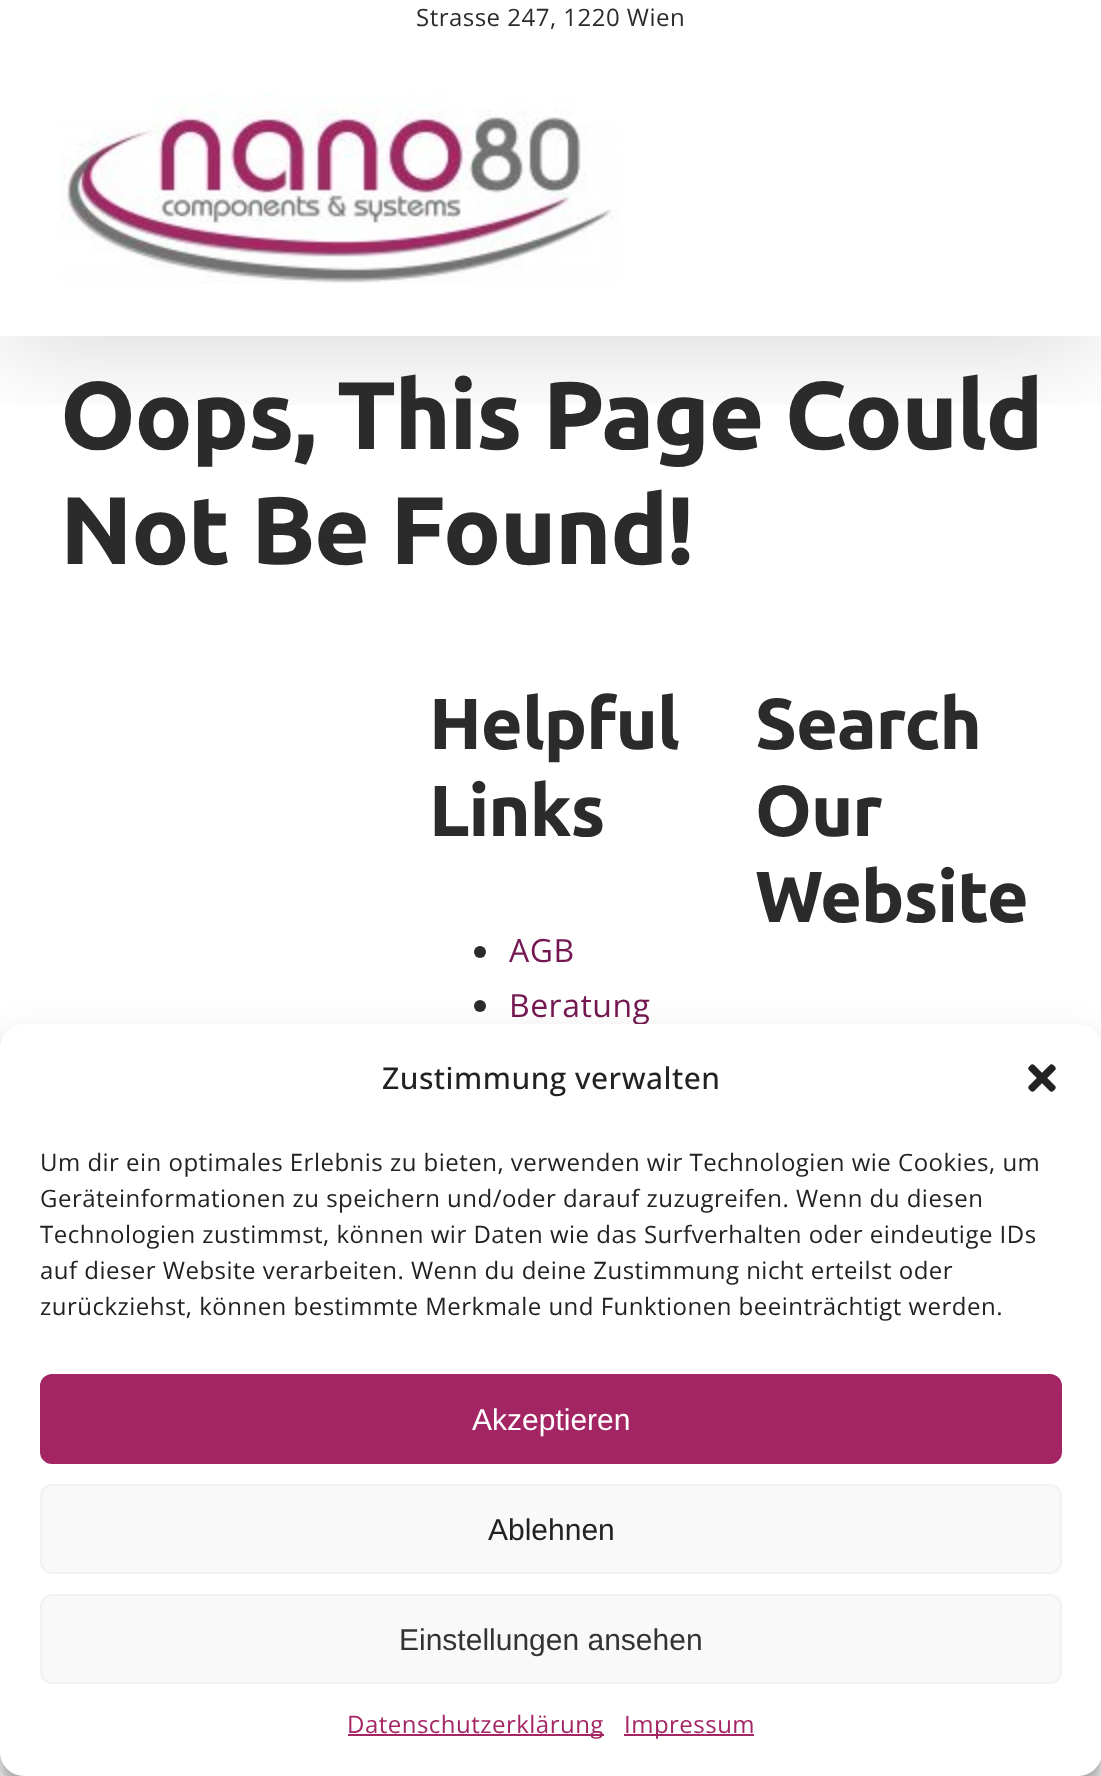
<svg xmlns="http://www.w3.org/2000/svg" width="1101" height="1776">
<defs>
<clipPath id="clip1"><rect x="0" y="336" width="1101" height="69"/></clipPath>
</defs>
<rect width="100%" height="100%" fill="#fff"/>
<g clip-path="url(#clip1)">
<rect x="4" y="-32" width="1094" height="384" fill="#00000024" filter="blur(50px)"/>
</g>
<text x="416" y="26" style="font-family:Open Sans;font-size:24px;letter-spacing:0.48px;fill:#2b2b2b">Strasse 247, 1220 Wien</text>
<image x="60" y="94" width="560" height="190" href="media/1.png"/>
<text x="60" y="449" style="font-family:Ubuntu;font-size:96px;font-weight:bold;letter-spacing:-1.4px;fill:#2b2b2b">Oops, This Page Could</text>
<text x="60" y="564" style="font-family:Ubuntu;font-size:96px;font-weight:bold;letter-spacing:-1.4px;fill:#2b2b2b">Not Be Found!</text>
<text x="429" y="749" style="font-family:Ubuntu;font-size:72px;font-weight:bold;letter-spacing:-1px;fill:#2b2b2b">Helpful</text>
<text x="429" y="836" style="font-family:Ubuntu;font-size:72px;font-weight:bold;letter-spacing:-1px;fill:#2b2b2b">Links</text>
<circle cx="480" cy="952" r="6" fill="#2b2b2b"/>
<text x="509" y="962" style="font-family:Open Sans;font-size:32px;letter-spacing:0.48px;fill:#751851">AGB</text>
<circle cx="480" cy="1006" r="6" fill="#2b2b2b"/>
<text x="509" y="1017" style="font-family:Open Sans;font-size:32px;letter-spacing:0.48px;fill:#751851">Beratung</text>
<text x="755" y="749" style="font-family:Ubuntu;font-size:72px;font-weight:bold;letter-spacing:-1px;fill:#2b2b2b">Search</text>
<text x="755" y="836" style="font-family:Ubuntu;font-size:72px;font-weight:bold;letter-spacing:-1px;fill:#2b2b2b">Our</text>
<text x="755" y="922" style="font-family:Ubuntu;font-size:72px;font-weight:bold;letter-spacing:-1px;fill:#2b2b2b">Website</text>
<rect y="1036" width="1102" height="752" rx="24" fill="#0000003b" filter="blur(6px)"/>
<rect y="1044" width="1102" height="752" rx="24" fill="#00000030" filter="blur(20px)"/>
<rect y="1024" width="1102" height="752" rx="24" fill="#fff"/>
<text x="382" y="1089" style="font-family:Open Sans;font-size:30px;font-weight:500;letter-spacing:0.48px;fill:#222">Zustimmung verwalten</text>
<image x="1028" y="1064" width="28" height="28" href="media/2.png"/>
<text x="40" y="1171" style="font-family:Open Sans;font-size:24px;letter-spacing:0.48px;fill:#222">Um dir ein optimales Erlebnis zu bieten, verwenden wir Technologien wie Cookies, um</text>
<text x="40" y="1207" style="font-family:Open Sans;font-size:24px;letter-spacing:0.48px;fill:#222">Geräteinformationen zu speichern und/oder darauf zuzugreifen. Wenn du diesen</text>
<text x="40" y="1243" style="font-family:Open Sans;font-size:24px;letter-spacing:0.48px;fill:#222">Technologien zustimmst, können wir Daten wie das Surfverhalten oder eindeutige IDs</text>
<text x="40" y="1279" style="font-family:Open Sans;font-size:24px;letter-spacing:0.48px;fill:#222">auf dieser Website verarbeiten. Wenn du deine Zustimmung nicht erteilst oder</text>
<text x="40" y="1315" style="font-family:Open Sans;font-size:24px;letter-spacing:0.48px;fill:#222">zurückziehst, können bestimmte Merkmale und Funktionen beeinträchtigt werden.</text>
<rect x="41" y="1375" width="1020" height="88" rx="11" fill="#a42564" stroke="#a42564" stroke-width="2"/>
<text x="472" y="1430" style="font-family:Liberation Sans;font-size:30px;fill:#fff">Akzeptieren</text>
<rect x="41" y="1485" width="1020" height="88" rx="11" fill="#f9f9f9" stroke="#f2f2f2" stroke-width="2"/>
<text x="488" y="1540" style="font-family:Liberation Sans;font-size:30px;fill:#222">Ablehnen</text>
<rect x="41" y="1595" width="1020" height="88" rx="11" fill="#f9f9f9" stroke="#f2f2f2" stroke-width="2"/>
<text x="399" y="1650" style="font-family:Liberation Sans;font-size:30px;fill:#333">Einstellungen ansehen</text>
<rect x="348" y="1734" width="256" height="2" fill="#a42564"/>
<text x="347" y="1733" style="font-family:Open Sans;font-size:24px;letter-spacing:0.48px;fill:#a42564">Datenschutzerklärung</text>
<rect x="624" y="1734" width="130" height="2" fill="#a42564"/>
<text x="624" y="1733" style="font-family:Open Sans;font-size:24px;letter-spacing:0.48px;fill:#a42564">Impressum</text>
</svg>
